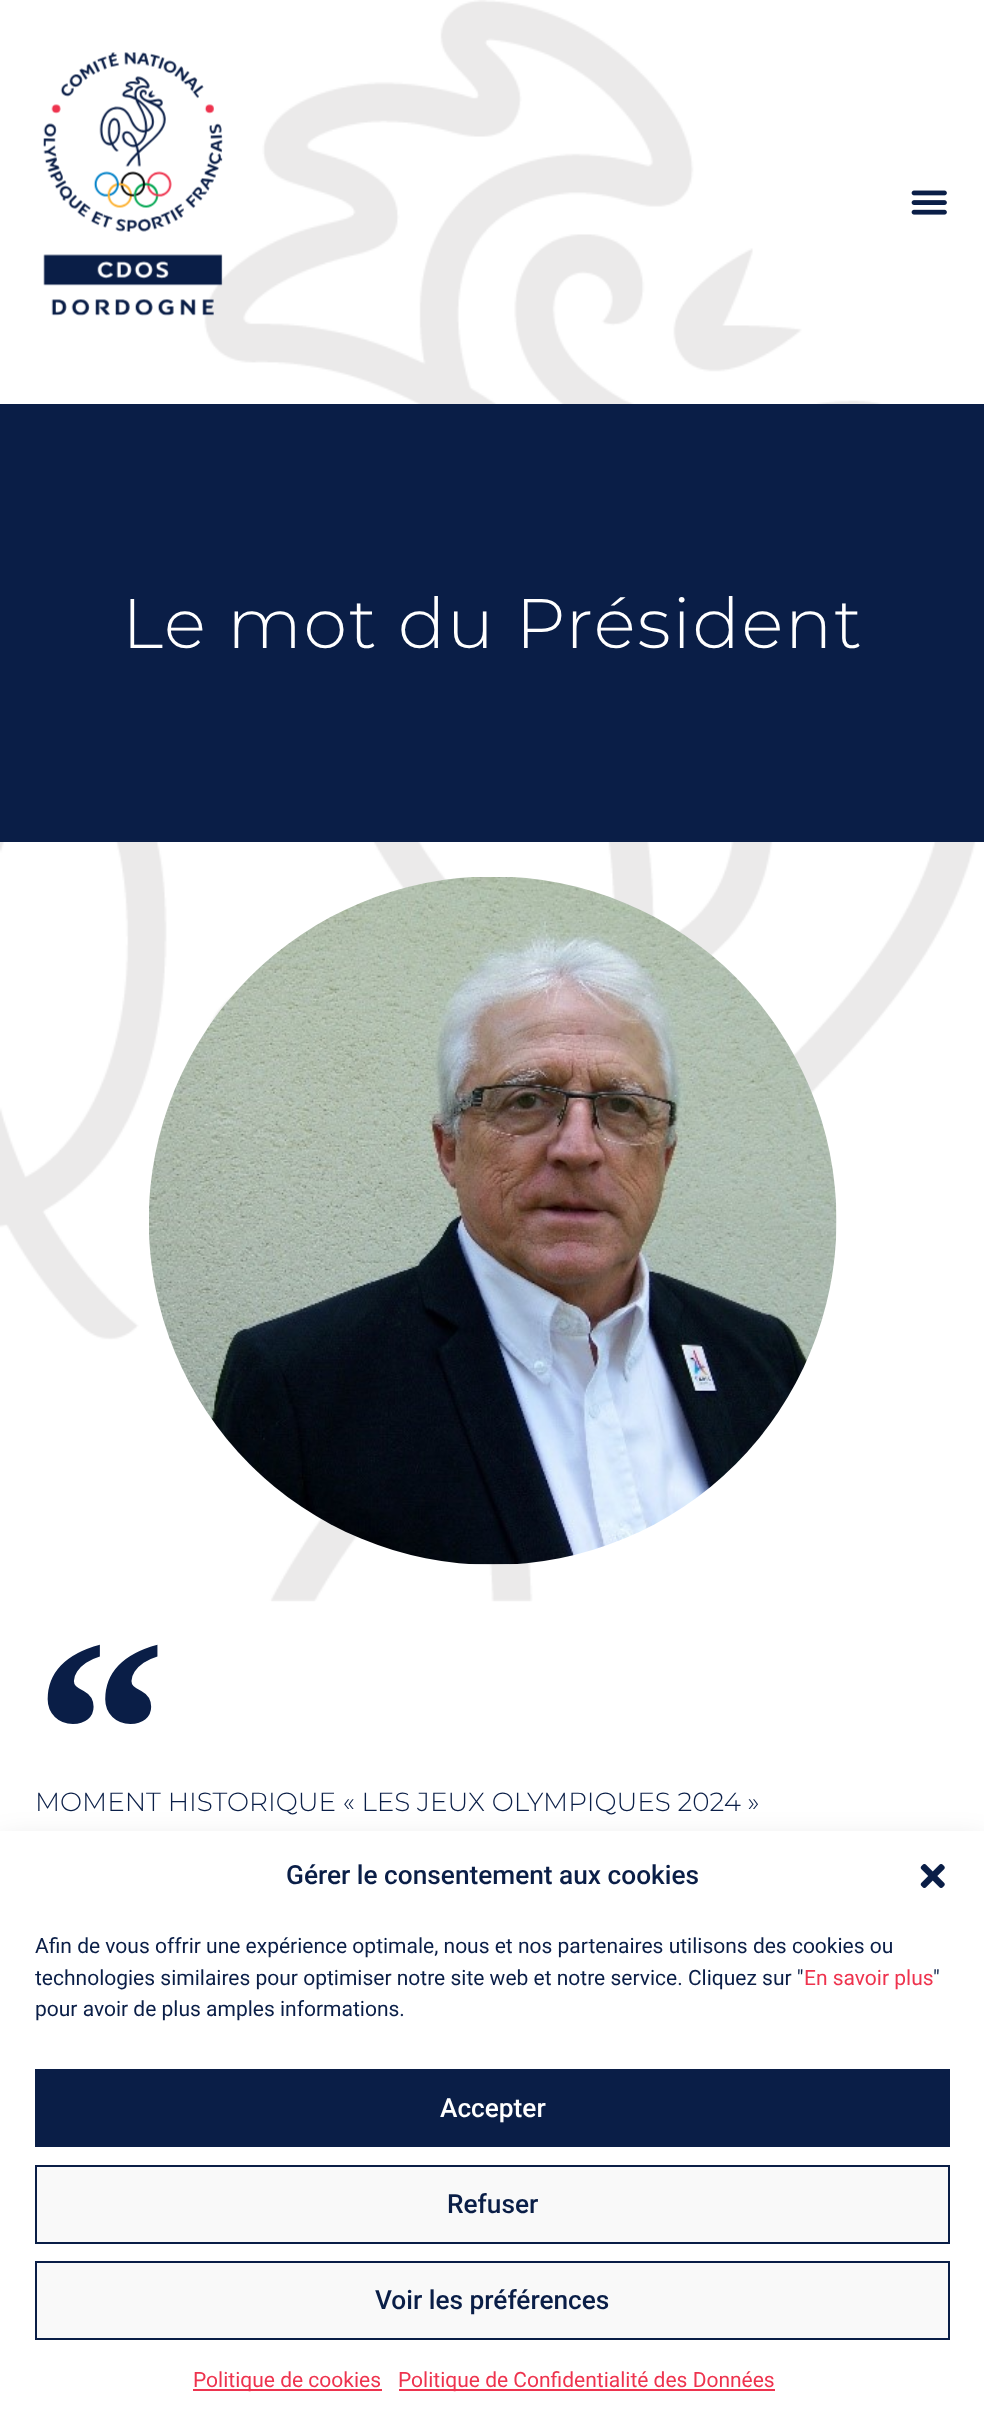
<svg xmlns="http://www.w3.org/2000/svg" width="984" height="2424">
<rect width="100%" height="100%" fill="#fff"/>
<image x="0" y="0" width="984" height="1602" href="media/1.png"/>
<image x="43" y="52" width="180" height="264" href="media/2.png"/>
<image x="911" y="190" width="36" height="25" href="media/3.png"/>
<rect y="404" width="984" height="438" fill="#0a1e47"/>
<text x="122" y="648" style="font-family:Montserrat;font-size:70px;font-weight:300;letter-spacing:1.75px;fill:#fff">Le mot du Président</text>
<image x="149" y="877" width="688" height="688" href="media/4.png"/>
<text x="35" y="1819" style="font-family:Liberation Serif;font-size:262px;font-weight:bold;fill:#0a1e47">“</text>
<text x="35" y="1811" style="font-family:Montserrat;font-size:26.25px;font-weight:300;fill:#0a1e47">MOMENT HISTORIQUE « LES JEUX OLYMPIQUES 2024 »</text>
<rect y="1848" width="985" height="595" fill="#00000030" filter="blur(17.5px)"/>
<rect y="1831" width="984" height="593" fill="#fff"/>
<text x="286" y="1884" style="font-family:Roboto;font-size:26.25px;font-weight:500;fill:#0a1e47">Gérer le consentement aux cookies</text>
<image x="920" y="1864" width="25" height="24" href="media/5.png"/>
<text x="35" y="1953" style="font-family:Roboto;font-size:21px;fill:#0a1e47">Afin de vous offrir une expérience optimale, nous et nos partenaires utilisons des cookies ou</text>
<text x="35" y="1985" style="font-family:Roboto;font-size:21px;fill:#0a1e47">technologies similaires pour optimiser notre site web et notre service. Cliquez sur "</text>
<text x="804" y="1985" style="font-family:Roboto;font-size:21px;fill:#ee334e">En savoir plus</text>
<text x="933" y="1985" style="font-family:Roboto;font-size:21px;fill:#0a1e47">"</text>
<text x="35" y="2016" style="font-family:Roboto;font-size:21px;fill:#0a1e47">pour avoir de plus amples informations.</text>
<rect x="35" y="2069" width="915" height="78" fill="#0a1e47"/>
<text x="440" y="2117" style="font-family:Roboto;font-size:26.25px;font-weight:500;fill:#fff">Accepter</text>
<rect x="36" y="2166" width="913" height="77" fill="#f9f9f9" stroke="#0a1e47" stroke-width="2"/>
<text x="447" y="2213" style="font-family:Roboto;font-size:26.25px;font-weight:500;fill:#0a1e47">Refuser</text>
<rect x="36" y="2262" width="913" height="77" fill="#f9f9f9" stroke="#0a1e47" stroke-width="2"/>
<text x="375" y="2309" style="font-family:Roboto;font-size:26.25px;font-weight:500;fill:#0a1e47">Voir les préférences</text>
<rect x="193" y="2389" width="189" height="2" fill="#ee334e"/>
<text x="193" y="2387" style="font-family:Roboto;font-size:21px;fill:#ee334e">Politique de cookies</text>
<rect x="399" y="2389" width="376" height="2" fill="#ee334e"/>
<text x="398" y="2387" style="font-family:Roboto;font-size:21px;fill:#ee334e">Politique de Confidentialité des Données</text>
</svg>
